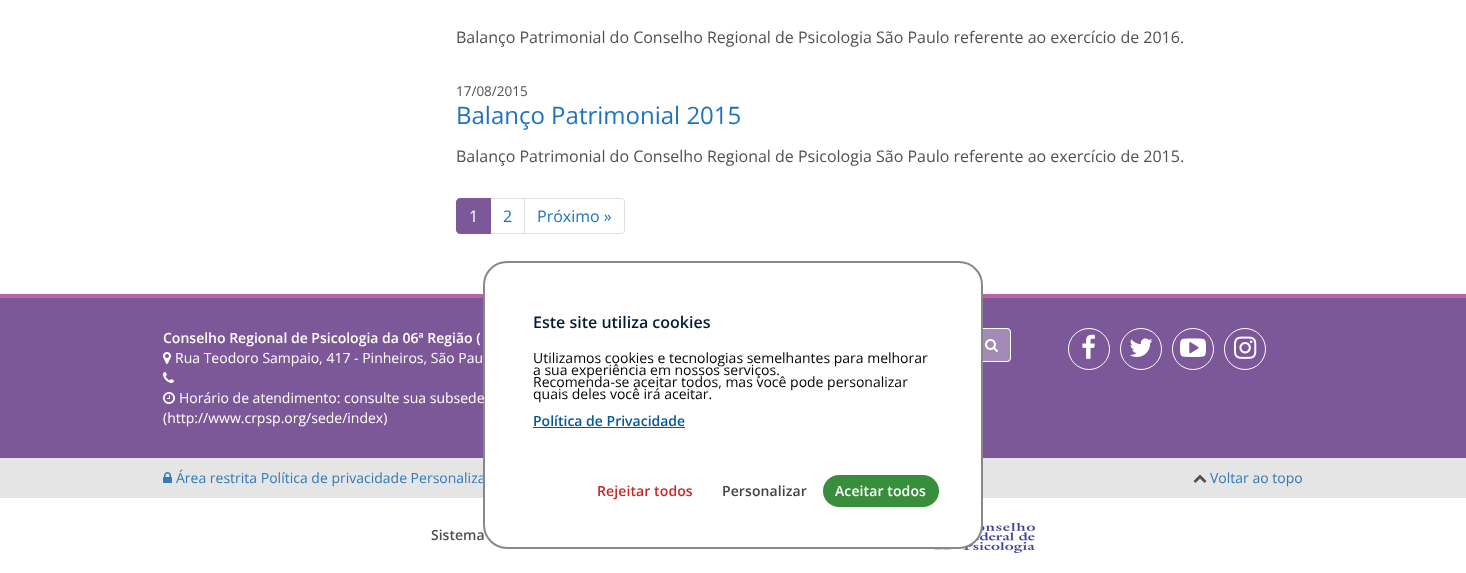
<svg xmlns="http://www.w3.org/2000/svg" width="1466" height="573">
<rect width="100%" height="100%" fill="#fff"/>
<text x="456" y="43" style="font-family:Open Sans;font-size:16px;fill:#515151">Balanço Patrimonial do Conselho Regional de Psicologia São Paulo referente ao exercício de 2016.</text>
<text x="456" y="96" style="font-family:Open Sans;font-size:13.5px;fill:#515151">17/08/2015</text>
<text x="456" y="124" style="font-family:Open Sans;font-size:24px;fill:#1e73be">Balanço Patrimonial 2015</text>
<text x="456" y="162" style="font-family:Open Sans;font-size:16px;fill:#515151">Balanço Patrimonial do Conselho Regional de Psicologia São Paulo referente ao exercício de 2015.</text>
<rect x="490.5" y="198.5" width="34" height="35" fill="none" stroke="#ddd"/>
<path d="M460 198.5h30.5v35h-30.5c-2 0-3.5-1.5-3.5-3.5v-28c0-2 1.5-3.5 3.5-3.5z" fill="#7d5898" stroke="#7d5898"/>
<text x="469" y="222" style="font-family:Open Sans;font-size:16px;fill:#fff">1</text>
<text x="503" y="222" style="font-family:Open Sans;font-size:16px;fill:#1e73be">2</text>
<path d="M524.5 198.5h96.5c2 0 3.5 1.5 3.5 3.5v28c0 2-1.5 3.5-3.5 3.5h-96.5z" fill="#fff" stroke="#ddd"/>
<text x="537" y="222" style="font-family:Open Sans;font-size:16px;fill:#1e73be">Próximo »</text>
<rect y="298" width="1466" height="160" fill="#7d5898"/>
<rect y="294" width="1466" height="4" fill="#bc63a4"/>
<path d="M973 328h34c2 0 4 2 4 4v26c0 2-2 4-4 4h-34z" fill="#a48ab7"/>
<path d="M973 328h34c2 0 4 2 4 4v26c0 2-2 4-4 4h-34zm0 1h34c1.5 0 3 1.5 3 3v26c0 1.5-1.5 3-3 3h-34z" fill="#fff" fill-rule="evenodd"/>
<rect y="458" width="1466" height="40" fill="#e5e5e5"/>
<text x="176" y="483" style="font-family:Open Sans;font-size:14px;fill:#337ab7">Área restrita Política de privacidade Personaliza</text>
<text x="431" y="540" style="font-family:Open Sans;font-size:14px;font-weight:600;fill:#515151">Sistema</text>
<image x="934" y="522" width="101" height="31" href="media/11.png"/>
<rect x="484" y="262" width="498" height="286" rx="23" fill="#fff" stroke="#888" stroke-width="2"/>
<text x="533" y="328" style="font-family:Open Sans;font-size:16px;font-weight:600;fill:#001d35">Este site utiliza cookies</text>
<text x="533" y="363" style="font-family:Open Sans;font-size:14px;fill:#000">Utilizamos cookies e tecnologias semelhantes para melhorar</text>
<text x="533" y="375" style="font-family:Open Sans;font-size:14px;fill:#000">a sua experiência em nossos serviços.</text>
<text x="533" y="387" style="font-family:Open Sans;font-size:14px;fill:#000">Recomenda-se aceitar todos, mas você pode personalizar</text>
<text x="533" y="399" style="font-family:Open Sans;font-size:14px;fill:#000">quais deles você irá aceitar.</text>
<text x="533" y="426" style="font-family:Open Sans;font-size:14px;font-weight:600;fill:#01579b">Política de Privacidade</text>
<rect x="533" y="427" width="152" height="1" fill="#01579b"/>
<text x="597" y="496" style="font-family:Open Sans;font-size:14px;font-weight:600;letter-spacing:0.1px;fill:#c62828">Rejeitar todos</text>
<text x="722" y="496" style="font-family:Open Sans;font-size:14px;font-weight:600;letter-spacing:0.1px;fill:#424242">Personalizar</text>
<rect x="823" y="475" width="116" height="32" rx="16" fill="#388e3c"/>
<text x="835" y="496" style="font-family:Open Sans;font-size:14px;font-weight:600;letter-spacing:0.1px;fill:#fff">Aceitar todos</text>
<text x="163" y="343" style="font-family:Open Sans;font-size:14px;font-weight:600;fill:#fff">Conselho Regional de Psicologia da 06ª Região (</text>
<image x="163" y="352" width="8" height="12" href="media/1.png"/>
<text x="175" y="363" style="font-family:Open Sans;font-size:14px;fill:#fff">Rua Teodoro Sampaio, 417 - Pinheiros, São Pau</text>
<image x="163" y="372" width="11" height="11" href="media/2.png"/>
<image x="163" y="392" width="12" height="12" href="media/3.png"/>
<text x="179" y="403" style="font-family:Open Sans;font-size:14px;fill:#fff">Horário de atendimento: consulte sua subsede</text>
<text x="163" y="423" style="font-family:Open Sans;font-size:14px;fill:#fff">(http://www.crpsp.org/sede/index)</text>
<image x="985" y="339" width="13" height="13" href="media/4.png"/>
<circle cx="1089" cy="349" r="20.5" fill="none" stroke="#fff"/>
<image x="1082" y="334" width="13" height="25" href="media/5.png"/>
<circle cx="1141" cy="349" r="20.5" fill="none" stroke="#fff"/>
<image x="1130" y="338" width="23" height="19" href="media/6.png"/>
<circle cx="1193" cy="349" r="20.5" fill="none" stroke="#fff"/>
<image x="1180" y="338" width="26" height="19" href="media/7.png"/>
<circle cx="1245" cy="349" r="20.5" fill="none" stroke="#fff"/>
<image x="1234" y="336" width="23" height="23" href="media/8.png"/>
<image x="163" y="472" width="9" height="11" href="media/9.png"/>
<image x="1193" y="474" width="14" height="9" href="media/10.png"/>
<text x="1210" y="483" style="font-family:Open Sans;font-size:14px;fill:#337ab7">Voltar ao topo</text>
</svg>
